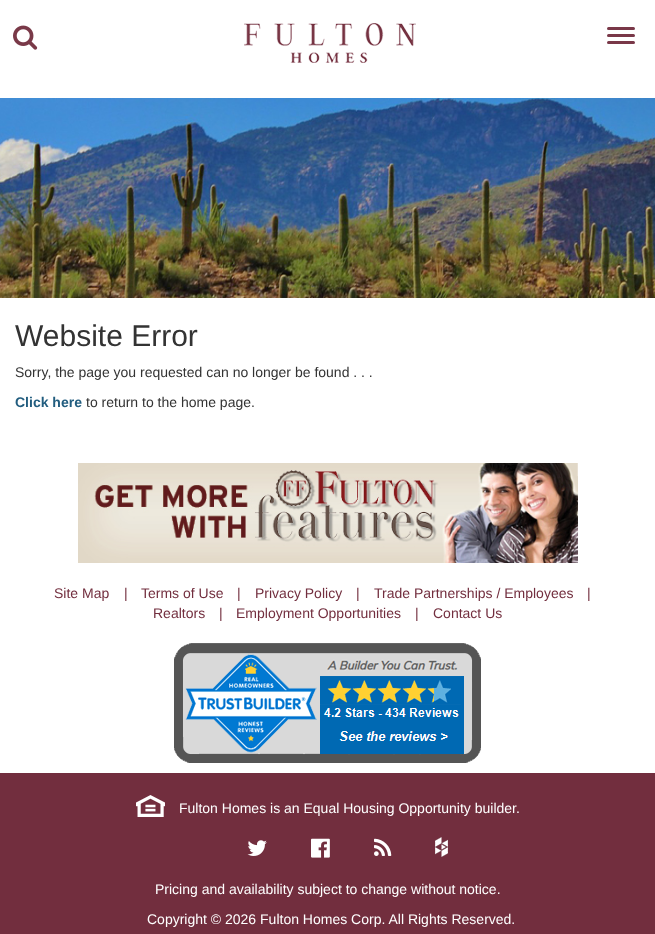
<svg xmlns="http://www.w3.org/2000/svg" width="655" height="934">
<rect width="100%" height="100%" fill="#fff"/>
<image x="13" y="25" width="25" height="25" href="media/1.png"/>
<image x="244" y="23" width="172" height="40" href="media/2.png"/>
<rect x="607" y="27" width="28" height="3" rx="1.5" fill="#793848"/>
<rect x="607" y="34" width="28" height="3" rx="1.5" fill="#793848"/>
<rect x="607" y="41" width="28" height="3" rx="1.5" fill="#793848"/>
<image x="0" y="98" width="655" height="200" href="media/3.png"/>
<text x="15" y="346" style="font-family:Liberation Sans;font-size:30px;fill:#333">Website Error</text>
<text x="15" y="377" style="font-family:Liberation Sans;font-size:14px;fill:#333">Sorry, the page you requested can no longer be found . . .</text>
<text x="15" y="407" style="font-family:Liberation Sans;font-size:14px;font-weight:bold;fill:#225d7f">Click here</text>
<text x="86" y="407" style="font-family:Liberation Sans;font-size:14px;fill:#333">to return to the home page.</text>
<image x="78" y="463" width="500" height="100" href="media/4.png"/>
<text x="54" y="598" style="font-family:Liberation Sans;font-size:14px;fill:#722e3e">Site Map</text>
<text x="124" y="598" style="font-family:Liberation Sans;font-size:14px;fill:#722e3e">|</text>
<text x="141" y="598" style="font-family:Liberation Sans;font-size:14px;fill:#722e3e">Terms of Use</text>
<text x="237" y="598" style="font-family:Liberation Sans;font-size:14px;fill:#722e3e">|</text>
<text x="255" y="598" style="font-family:Liberation Sans;font-size:14px;fill:#722e3e">Privacy Policy</text>
<text x="356" y="598" style="font-family:Liberation Sans;font-size:14px;fill:#722e3e">|</text>
<text x="374" y="598" style="font-family:Liberation Sans;font-size:14px;fill:#722e3e">Trade Partnerships / Employees</text>
<text x="587" y="598" style="font-family:Liberation Sans;font-size:14px;fill:#722e3e">|</text>
<text x="153" y="618" style="font-family:Liberation Sans;font-size:14px;fill:#722e3e">Realtors</text>
<text x="219" y="618" style="font-family:Liberation Sans;font-size:14px;fill:#722e3e">|</text>
<text x="236" y="618" style="font-family:Liberation Sans;font-size:14px;fill:#722e3e">Employment Opportunities</text>
<text x="415" y="618" style="font-family:Liberation Sans;font-size:14px;fill:#722e3e">|</text>
<text x="433" y="618" style="font-family:Liberation Sans;font-size:14px;fill:#722e3e">Contact Us</text>
<image x="174" y="643" width="307" height="120" href="media/5.png"/>
<rect y="773" width="655" height="161" fill="#722e3e"/>
<image x="136" y="795" width="29" height="22" href="media/6.png"/>
<text x="179" y="813" style="font-family:Liberation Sans;font-size:14px;fill:#fff">Fulton Homes is an Equal Housing Opportunity builder.</text>
<image x="247" y="840" width="20" height="16" href="media/7.png"/>
<image x="311" y="838" width="19" height="20" href="media/8.png"/>
<image x="374" y="838" width="18" height="18" href="media/9.png"/>
<image x="435" y="837" width="13" height="20" href="media/10.png"/>
<text x="155" y="894" style="font-family:Liberation Sans;font-size:14px;fill:#fff">Pricing and availability subject to change without notice.</text>
<text x="147" y="924" style="font-family:Liberation Sans;font-size:14px;fill:#fff">Copyright © 2026 Fulton Homes Corp. All Rights Reserved.</text>
</svg>
